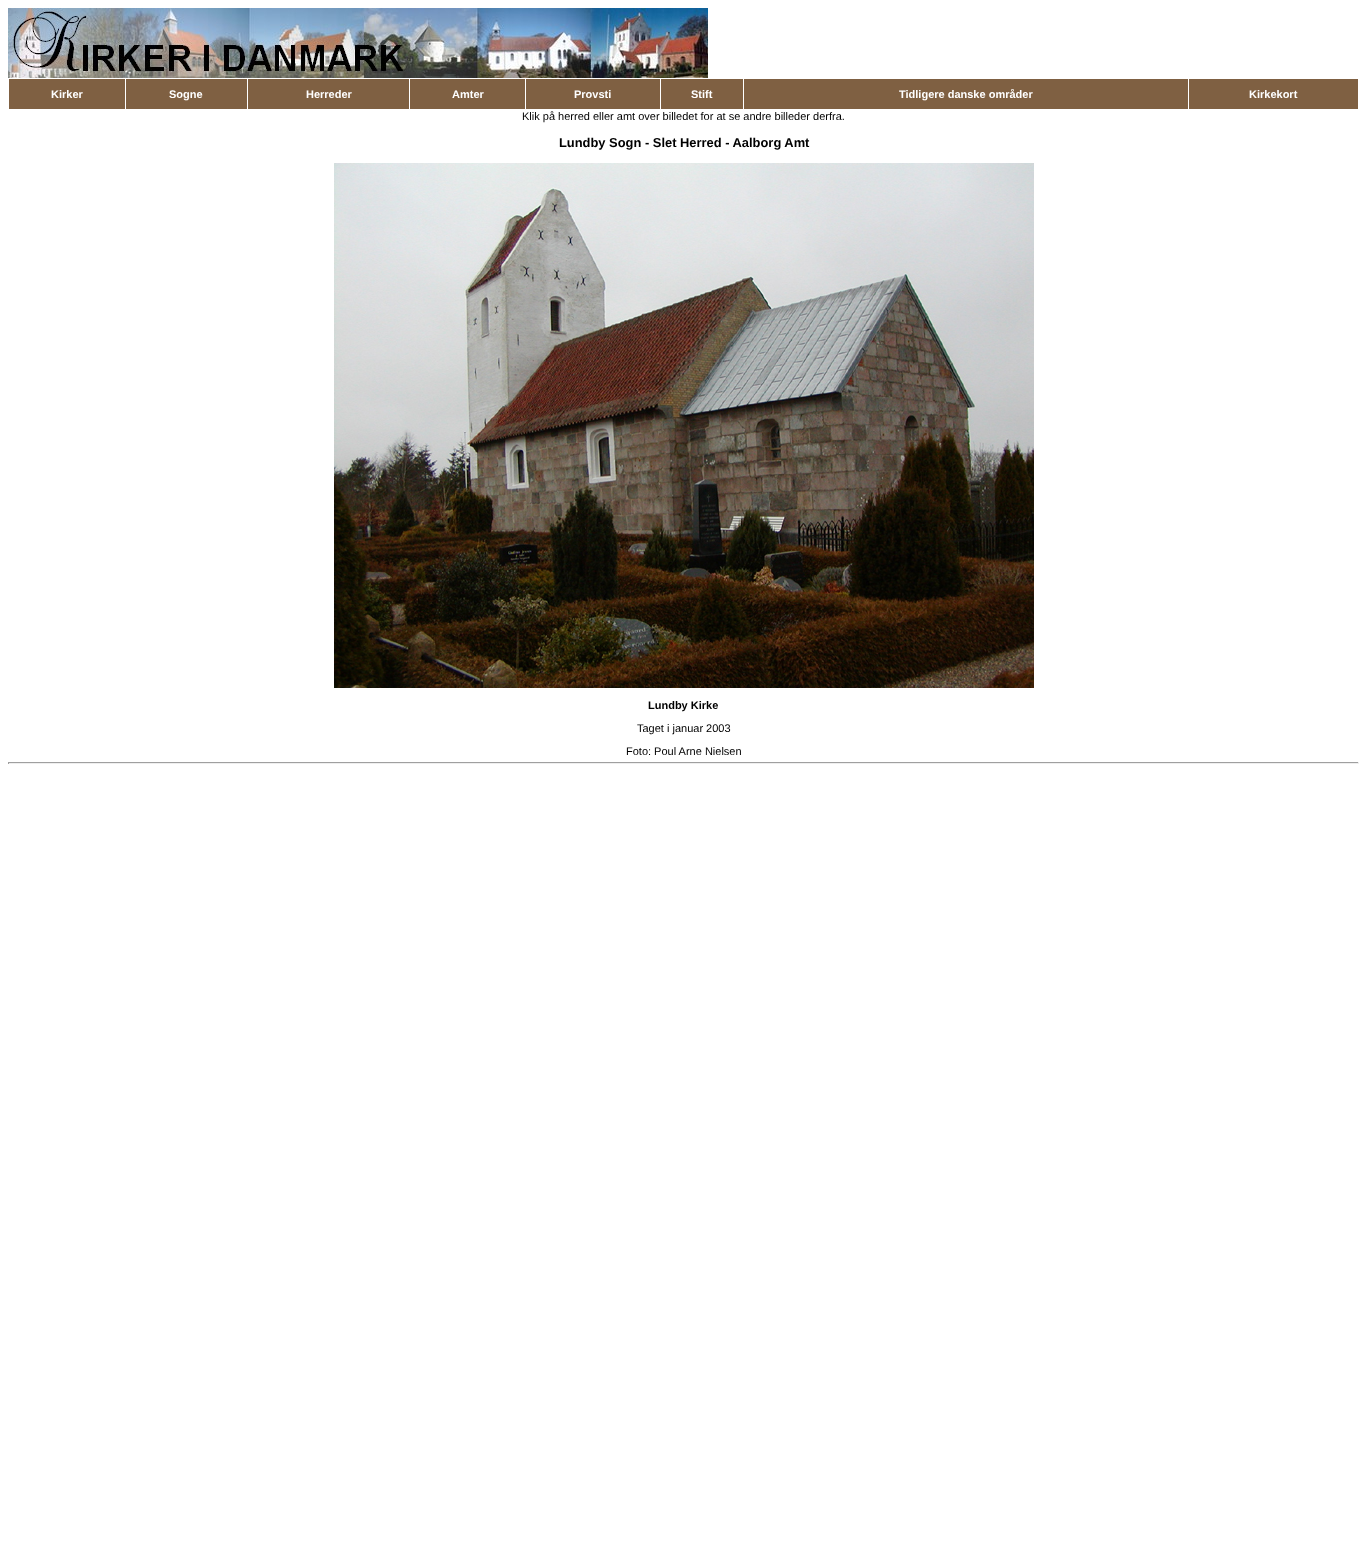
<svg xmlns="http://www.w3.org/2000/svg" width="1367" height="1558">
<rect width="100%" height="100%" fill="#fff"/>
<image x="8" y="8" width="700" height="70" href="media/1.png"/>
<rect x="9" y="79" width="116" height="30" fill="#7f6042"/>
<text x="51" y="98" style="font-family:Liberation Sans;font-size:11px;font-weight:bold;fill:#fff">Kirker</text>
<rect x="126" y="79" width="121" height="30" fill="#7f6042"/>
<text x="169" y="98" style="font-family:Liberation Sans;font-size:11px;font-weight:bold;fill:#fff">Sogne</text>
<rect x="248" y="79" width="161" height="30" fill="#7f6042"/>
<text x="306" y="98" style="font-family:Liberation Sans;font-size:11px;font-weight:bold;fill:#fff">Herreder</text>
<rect x="410" y="79" width="115" height="30" fill="#7f6042"/>
<text x="452" y="98" style="font-family:Liberation Sans;font-size:11px;font-weight:bold;fill:#fff">Amter</text>
<rect x="526" y="79" width="134" height="30" fill="#7f6042"/>
<text x="574" y="98" style="font-family:Liberation Sans;font-size:11px;font-weight:bold;fill:#fff">Provsti</text>
<rect x="661" y="79" width="82" height="30" fill="#7f6042"/>
<text x="691" y="98" style="font-family:Liberation Sans;font-size:11px;font-weight:bold;fill:#fff">Stift</text>
<rect x="744" y="79" width="444" height="30" fill="#7f6042"/>
<text x="899" y="98" style="font-family:Liberation Sans;font-size:11px;font-weight:bold;fill:#fff">Tidligere danske områder</text>
<rect x="1189" y="79" width="169" height="30" fill="#7f6042"/>
<text x="1249" y="98" style="font-family:Liberation Sans;font-size:11px;font-weight:bold;fill:#fff">Kirkekort</text>
<text x="522" y="120" style="font-family:Liberation Sans;font-size:11px;fill:#000">Klik på herred eller amt over billedet for at se andre billeder derfra.</text>
<text x="559" y="147" style="font-family:Liberation Sans;font-size:12.9px;font-weight:bold;fill:#000">Lundby Sogn - Slet Herred - Aalborg Amt</text>
<image x="334" y="163" width="700" height="525" href="media/2.png"/>
<text x="648" y="709" style="font-family:Liberation Sans;font-size:11px;font-weight:bold;fill:#000">Lundby Kirke</text>
<text x="637" y="732" style="font-family:Liberation Sans;font-size:11px;fill:#000">Taget i januar 2003</text>
<text x="626" y="755" style="font-family:Liberation Sans;font-size:11px;fill:#000">Foto: Poul Arne Nielsen</text>
<rect x="8" y="762" width="1351" height="1" fill="#9f9f9f"/>
<rect x="1358" y="762" width="1" height="2" fill="#eee"/>
<rect x="8" y="763" width="1351" height="1" fill="#eee"/>
<rect x="8" y="762" width="1" height="2" fill="#9f9f9f"/>
</svg>
